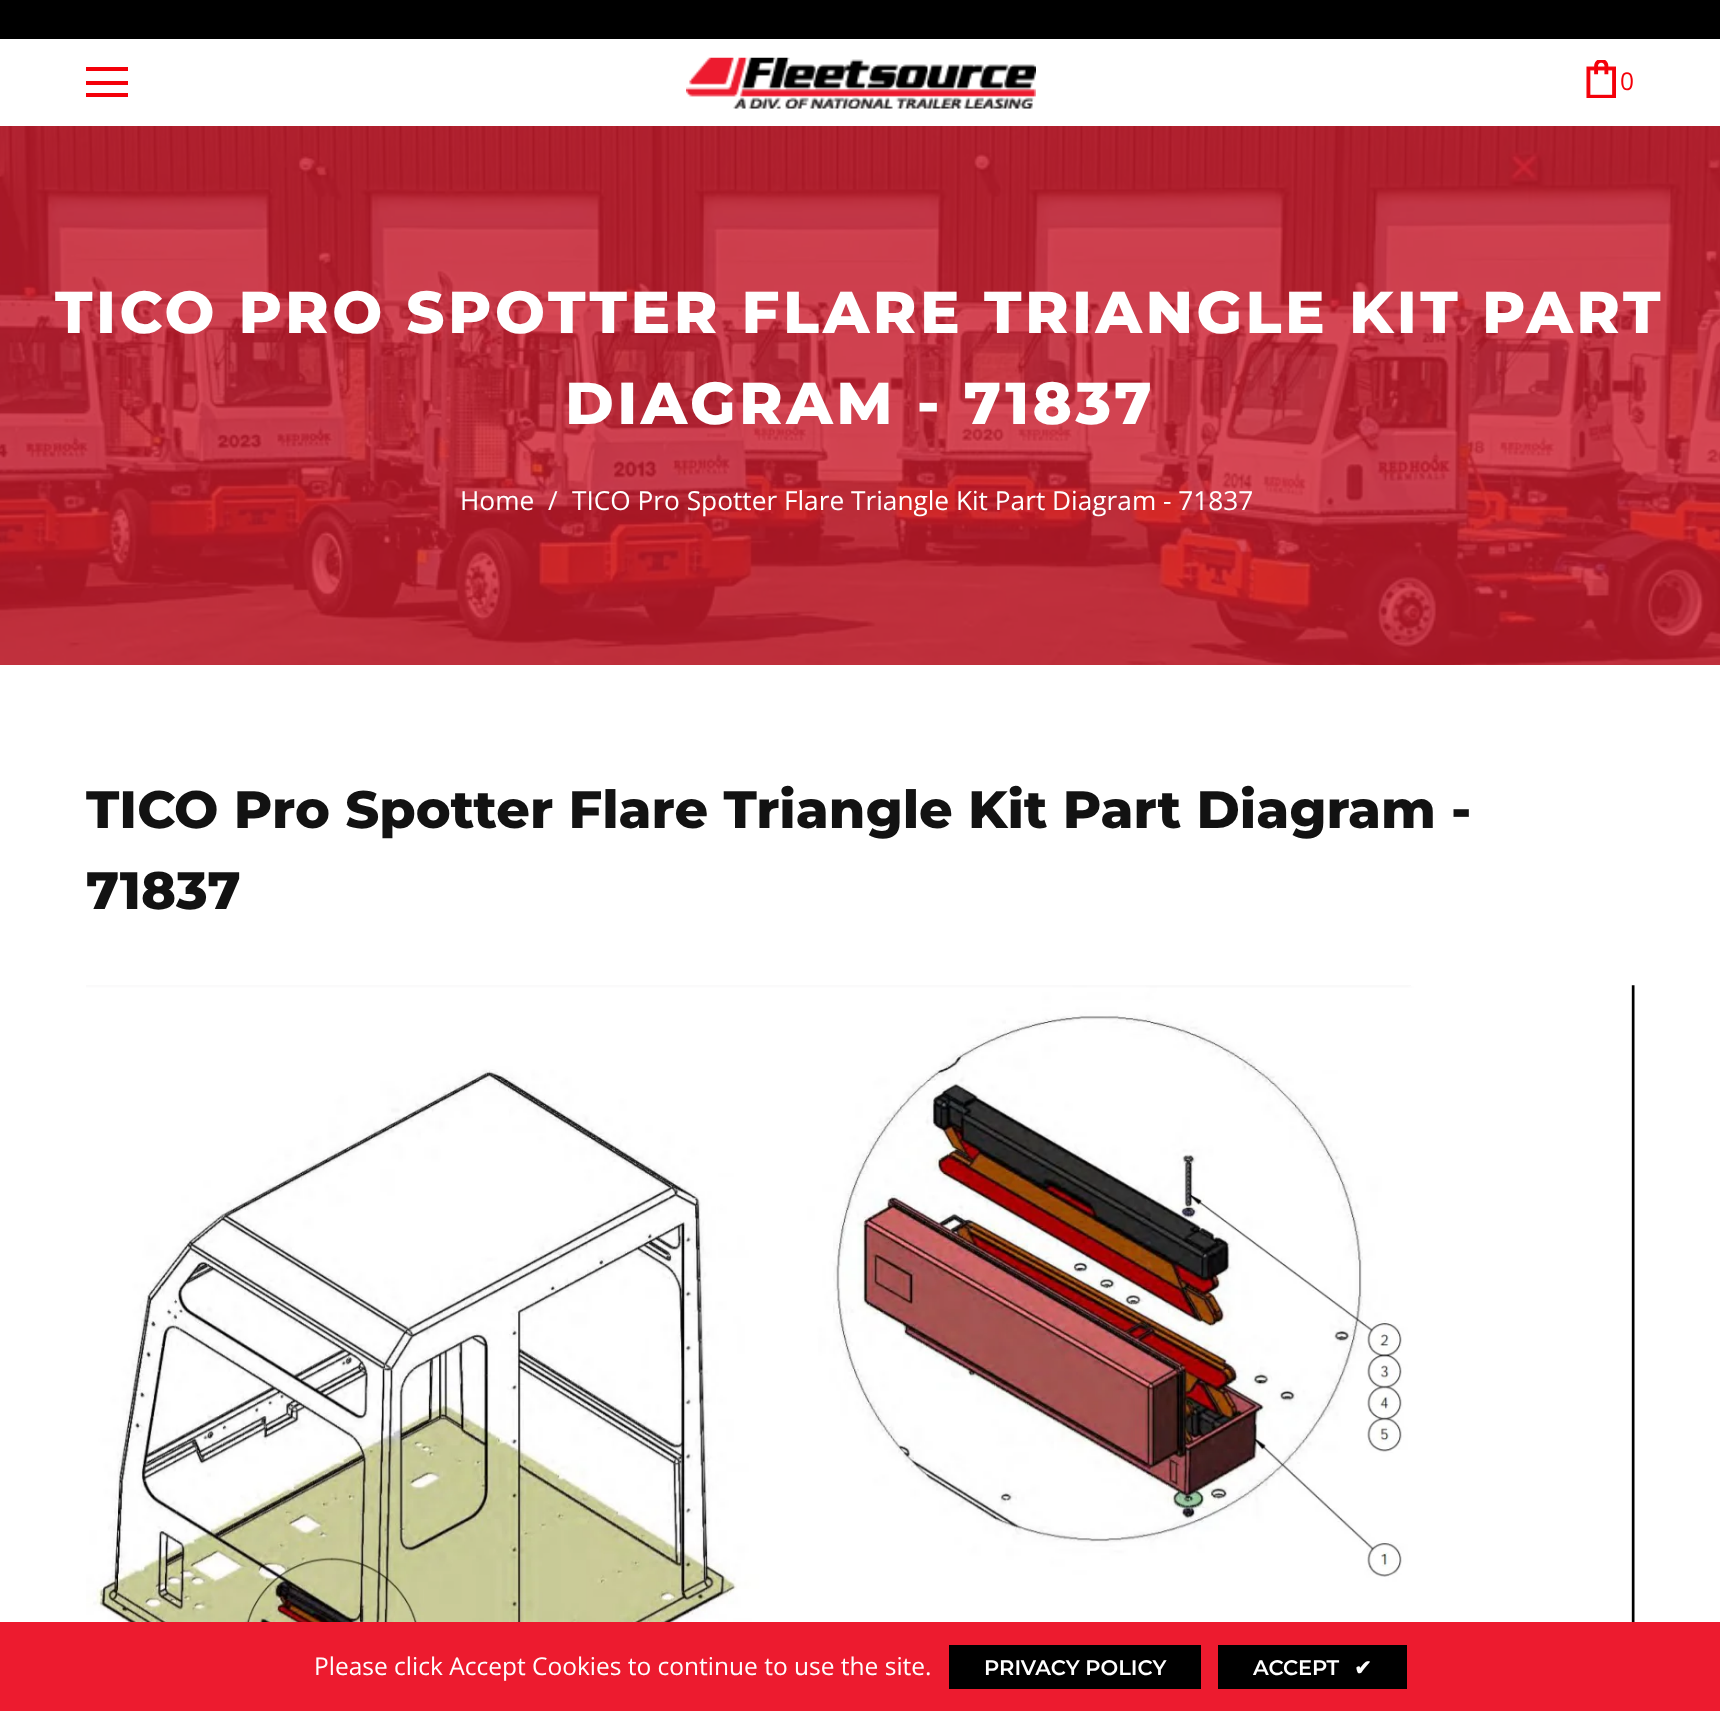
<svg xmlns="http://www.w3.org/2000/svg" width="1720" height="1711">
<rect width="100%" height="100%" fill="#fff"/>
<rect width="1720" height="39" fill="#000"/>
<rect x="86" y="67" width="42" height="4" fill="#f40009"/>
<rect x="86" y="81" width="42" height="4" fill="#f40009"/>
<rect x="86" y="93" width="42" height="4" fill="#f40009"/>
<image x="686" y="57" width="350" height="52" href="media/1.png"/>
<image x="1586" y="60" width="30" height="38" href="media/2.png"/>
<text x="1620" y="90" style="font-family:Open Sans;font-size:24.5px;fill:#f40009">0</text>
<image x="0" y="126" width="1720" height="539" href="media/3.png"/>
<text x="55" y="333" style="font-family:Montserrat;font-size:59.05px;font-weight:800;letter-spacing:3.5px;fill:#fff">TICO PRO SPOTTER FLARE TRIANGLE KIT PART</text>
<text x="565" y="424" style="font-family:Montserrat;font-size:59.05px;font-weight:800;letter-spacing:3.5px;fill:#fff">DIAGRAM - 71837</text>
<text x="460" y="510" style="font-family:Open Sans;font-size:26.25px;fill:#fff">Home</text>
<text x="548" y="510" style="font-family:Open Sans;font-size:26.25px;fill:#fff">/</text>
<text x="572" y="510" style="font-family:Open Sans;font-size:26.25px;fill:#fff">TICO Pro Spotter Flare Triangle Kit Part Diagram - 71837</text>
<text x="86" y="828" style="font-family:Montserrat;font-size:52.5px;font-weight:800;fill:#121212">TICO Pro Spotter Flare Triangle Kit Part Diagram -</text>
<text x="86" y="909" style="font-family:Montserrat;font-size:52.5px;font-weight:800;fill:#121212">71837</text>
<image x="86" y="985" width="1549" height="637" href="media/4.png"/>
<rect y="1622" width="1720" height="89" fill="#ed1b2f"/>
<text x="314" y="1675" style="font-family:Open Sans;font-size:24.5px;fill:#fff">Please click Accept Cookies to continue to use the site.</text>
<rect x="949" y="1645" width="252" height="44" fill="#000"/>
<text x="984" y="1675" style="font-family:Montserrat;font-size:21px;font-weight:600;fill:#fff">PRIVACY POLICY</text>
<rect x="1218" y="1645" width="189" height="44" fill="#000"/>
<text x="1253" y="1675" style="font-family:Montserrat;font-size:21px;font-weight:600;fill:#fff">ACCEPT</text>
<text x="1354" y="1675" style="font-family:DejaVu Sans;font-size:21px;font-weight:bold;fill:#fff">✔</text>
</svg>
